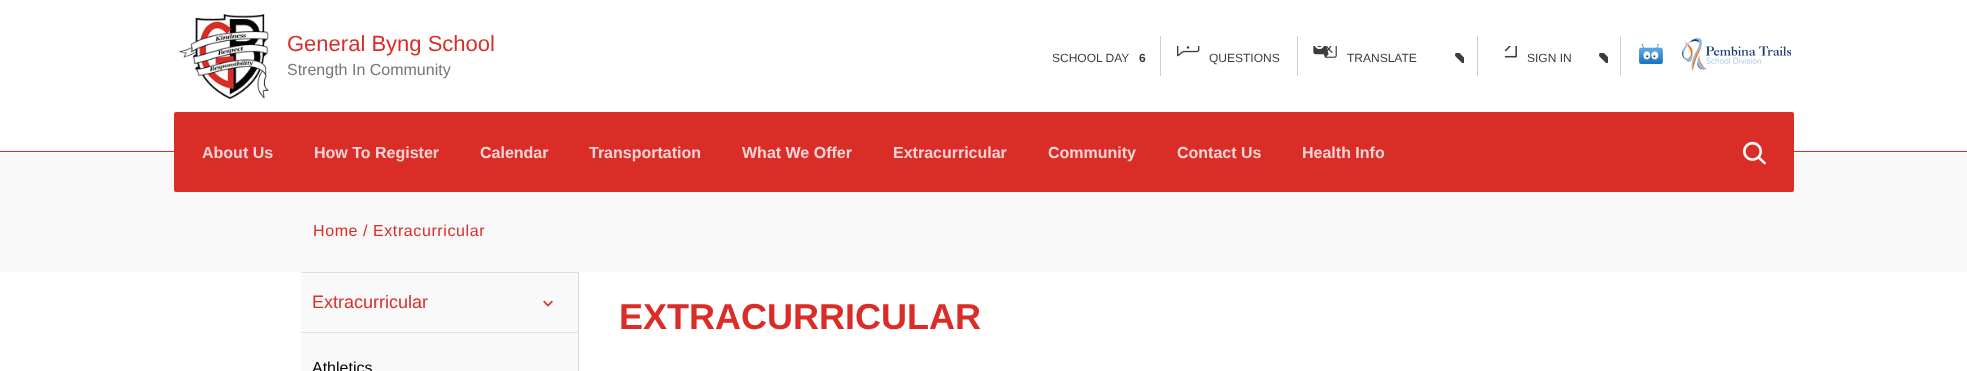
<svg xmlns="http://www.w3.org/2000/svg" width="1967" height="371">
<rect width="100%" height="100%" fill="#fff"/>
<image x="179" y="14" width="90" height="85" href="media/1.png"/>
<text x="287" y="51" style="font-family:Liberation Sans;font-size:22px;fill:#da2d28">General Byng School</text>
<text x="287" y="75" style="font-family:Liberation Sans;font-size:16px;fill:#767676">Strength In Community</text>
<text x="1052" y="62" style="font-family:Liberation Sans;font-size:12px;fill:#3c3c3c">SCHOOL DAY</text>
<text x="1139" y="62" style="font-family:Liberation Sans;font-size:12px;font-weight:bold;fill:#3c3c3c">6</text>
<rect x="1160" y="36" width="1" height="40" fill="#d0d0d0"/>
<image x="1177" y="46" width="23" height="11" href="media/2.png"/>
<text x="1209" y="62" style="font-family:Liberation Sans;font-size:12px;fill:#3c3c3c">QUESTIONS</text>
<rect x="1297" y="36" width="1" height="40" fill="#d0d0d0"/>
<image x="1313" y="46" width="24" height="12" href="media/3.png"/>
<text x="1347" y="62" style="font-family:Liberation Sans;font-size:12px;fill:#3c3c3c">TRANSLATE</text>
<image x="1455" y="53" width="9" height="10" href="media/4.png"/>
<rect x="1477" y="36" width="1" height="40" fill="#d0d0d0"/>
<image x="1504" y="46" width="13" height="12" href="media/5.png"/>
<text x="1527" y="62" style="font-family:Liberation Sans;font-size:12px;fill:#3c3c3c">SIGN IN</text>
<image x="1599" y="53" width="9" height="10" href="media/6.png"/>
<rect x="1620" y="36" width="1" height="40" fill="#d0d0d0"/>
<image x="1639" y="44" width="24" height="20" href="media/7.png"/>
<image x="1682" y="38" width="109" height="33" href="media/8.png"/>
<rect y="152" width="1967" height="120" fill="#f8f8f8"/>
<rect y="151" width="1967" height="1" fill="#da2d28"/>
<rect x="174" y="112" width="1620" height="80" rx="2" fill="#da2d28"/>
<text x="202" y="158" style="font-family:Liberation Sans;font-size:16px;font-weight:bold;fill:#f8d5d4">About Us</text>
<text x="314" y="158" style="font-family:Liberation Sans;font-size:16px;font-weight:bold;fill:#f8d5d4">How To Register</text>
<text x="480" y="158" style="font-family:Liberation Sans;font-size:16px;font-weight:bold;fill:#f8d5d4">Calendar</text>
<text x="589" y="158" style="font-family:Liberation Sans;font-size:16px;font-weight:bold;fill:#f8d5d4">Transportation</text>
<text x="742" y="158" style="font-family:Liberation Sans;font-size:16px;font-weight:bold;fill:#f8d5d4">What We Offer</text>
<text x="893" y="158" style="font-family:Liberation Sans;font-size:16px;font-weight:bold;fill:#f8d5d4">Extracurricular</text>
<text x="1048" y="158" style="font-family:Liberation Sans;font-size:16px;font-weight:bold;fill:#f8d5d4">Community</text>
<text x="1177" y="158" style="font-family:Liberation Sans;font-size:16px;font-weight:bold;fill:#f8d5d4">Contact Us</text>
<text x="1302" y="158" style="font-family:Liberation Sans;font-size:16px;font-weight:bold;fill:#f8d5d4">Health Info</text>
<image x="1743" y="141" width="23" height="24" href="media/9.png"/>
<text x="313" y="236" style="font-family:Liberation Sans;font-size:16px;letter-spacing:0.6px;fill:#da2d28">Home /</text>
<text x="373" y="236" style="font-family:Liberation Sans;font-size:16px;letter-spacing:0.6px;fill:#da2d28">Extracurricular</text>
<rect x="301" y="272" width="278" height="1" fill="#dedede"/>
<rect x="301" y="273" width="277" height="59" fill="#f9f9f9"/>
<text x="312" y="308" style="font-family:Liberation Sans;font-size:18px;fill:#da2d28">Extracurricular</text>
<image x="543" y="300" width="10" height="7" href="media/10.png"/>
<rect x="578" y="272" width="1" height="99" fill="#dadada"/>
<rect x="301" y="332" width="278" height="1" fill="#e2e2e2"/>
<rect x="301" y="333" width="277" height="38" fill="#f9f9f9"/>
<text x="312" y="373" style="font-family:Liberation Sans;font-size:16px;fill:#000">Athletics</text>
<text x="619" y="329" style="font-family:Liberation Sans;font-size:36px;font-weight:bold;fill:#da2d28">EXTRACURRICULAR</text>
</svg>
